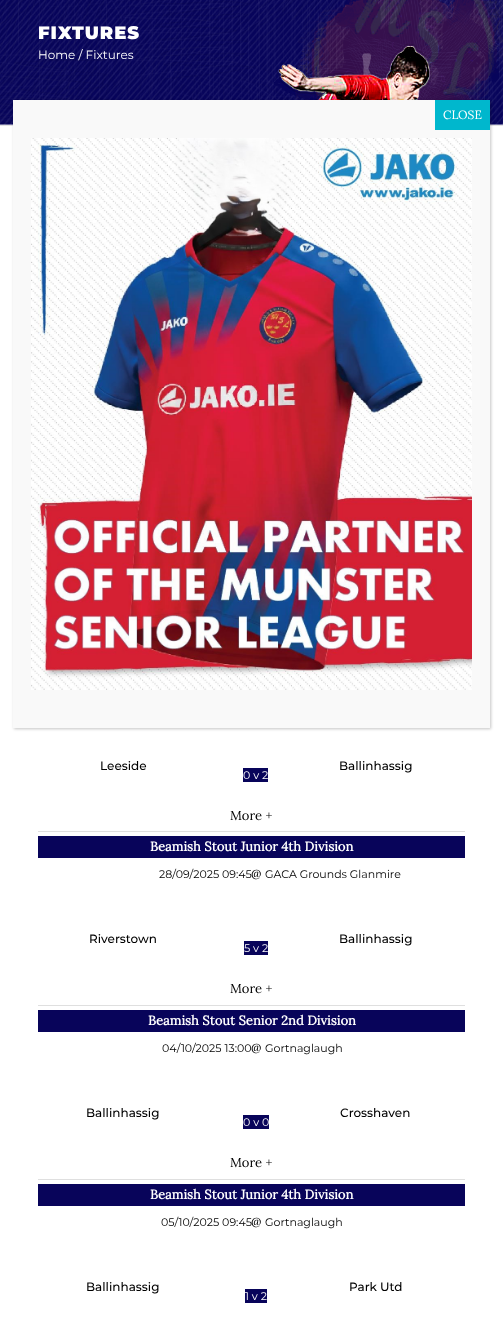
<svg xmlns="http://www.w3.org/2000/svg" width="503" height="1319">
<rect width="100%" height="100%" fill="#fff"/>
<image x="0" y="0" width="503" height="125" href="media/1.png"/>
<text x="38" y="39" style="font-family:Montserrat;font-size:18px;font-weight:900;letter-spacing:1px;fill:#fff">FIXTURES</text>
<text x="38" y="59" style="font-family:Montserrat;font-size:12px;font-weight:100;fill:#fff">Home / Fixtures</text>
<rect y="125" width="503" height="1" fill="#e1e1e1"/>
<rect x="38" y="831" width="427" height="1" fill="#dfdfdf"/>
<text x="100" y="770" style="font-family:Montserrat;font-size:12px;font-weight:500;fill:#000">Leeside</text>
<text x="339" y="770" style="font-family:Montserrat;font-size:12px;font-weight:500;fill:#000">Ballinhassig</text>
<rect x="243" y="768" width="25" height="14" fill="#08045a"/>
<text x="243" y="779" style="font-family:Montserrat;font-size:11px;font-weight:100;fill:#fff">0 v 2</text>
<text x="230" y="820" style="font-family:Lora;font-size:13px;fill:#000">More +</text>
<rect x="38" y="836" width="427" height="22" fill="#08045a"/>
<text x="150" y="851" style="font-family:Lora;font-size:13px;font-weight:bold;fill:#fff">Beamish Stout Junior 4th Division</text>
<rect x="38" y="1005" width="427" height="1" fill="#dfdfdf"/>
<text x="159" y="878" style="font-family:Montserrat;font-size:11px;font-weight:100;fill:#000">28/09/2025 09:45</text>
<text x="251" y="878" style="font-family:Lora;font-size:13px;fill:#000">@</text>
<text x="265" y="878" style="font-family:Montserrat;font-size:11px;font-weight:100;fill:#000">GACA Grounds Glanmire</text>
<text x="89" y="943" style="font-family:Montserrat;font-size:12px;font-weight:500;fill:#000">Riverstown</text>
<text x="339" y="943" style="font-family:Montserrat;font-size:12px;font-weight:500;fill:#000">Ballinhassig</text>
<rect x="244" y="941" width="24" height="14" fill="#08045a"/>
<text x="244" y="952" style="font-family:Montserrat;font-size:11px;font-weight:100;fill:#fff">5 v 2</text>
<text x="230" y="993" style="font-family:Lora;font-size:13px;fill:#000">More +</text>
<rect x="38" y="1010" width="427" height="22" fill="#08045a"/>
<text x="148" y="1025" style="font-family:Lora;font-size:13px;font-weight:bold;fill:#fff">Beamish Stout Senior 2nd Division</text>
<rect x="38" y="1179" width="427" height="1" fill="#dfdfdf"/>
<text x="162" y="1052" style="font-family:Montserrat;font-size:11px;font-weight:100;fill:#000">04/10/2025 13:00</text>
<text x="251" y="1052" style="font-family:Lora;font-size:13px;fill:#000">@</text>
<text x="265" y="1052" style="font-family:Montserrat;font-size:11px;font-weight:100;fill:#000">Gortnaglaugh</text>
<text x="86" y="1117" style="font-family:Montserrat;font-size:12px;font-weight:500;fill:#000">Ballinhassig</text>
<text x="340" y="1117" style="font-family:Montserrat;font-size:12px;font-weight:500;fill:#000">Crosshaven</text>
<rect x="243" y="1115" width="26" height="14" fill="#08045a"/>
<text x="243" y="1126" style="font-family:Montserrat;font-size:11px;font-weight:100;fill:#fff">0 v 0</text>
<text x="230" y="1167" style="font-family:Lora;font-size:13px;fill:#000">More +</text>
<rect x="38" y="1184" width="427" height="22" fill="#08045a"/>
<text x="150" y="1199" style="font-family:Lora;font-size:13px;font-weight:bold;fill:#fff">Beamish Stout Junior 4th Division</text>
<text x="161" y="1226" style="font-family:Montserrat;font-size:11px;font-weight:100;fill:#000">05/10/2025 09:45</text>
<text x="251" y="1226" style="font-family:Lora;font-size:13px;fill:#000">@</text>
<text x="265" y="1226" style="font-family:Montserrat;font-size:11px;font-weight:100;fill:#000">Gortnaglaugh</text>
<text x="86" y="1291" style="font-family:Montserrat;font-size:12px;font-weight:500;fill:#000">Ballinhassig</text>
<text x="349" y="1291" style="font-family:Montserrat;font-size:12px;font-weight:500;fill:#000">Park Utd</text>
<rect x="245" y="1289" width="22" height="14" fill="#08045a"/>
<text x="245" y="1300" style="font-family:Montserrat;font-size:11px;font-weight:100;fill:#fff">1 v 2</text>
<rect x="14" y="101" width="477" height="628" fill="#0202023b" filter="blur(1.5px)"/>
<rect x="13" y="100" width="477" height="628" fill="#f9f9f9"/>
<rect x="435" y="100" width="55" height="30" fill="#00b7cd"/>
<text x="443" y="119" style="font-family:Lora;font-size:12px;fill:#fff">CLOSE</text>
<image x="31" y="138" width="441" height="552" href="media/2.png"/>
</svg>
